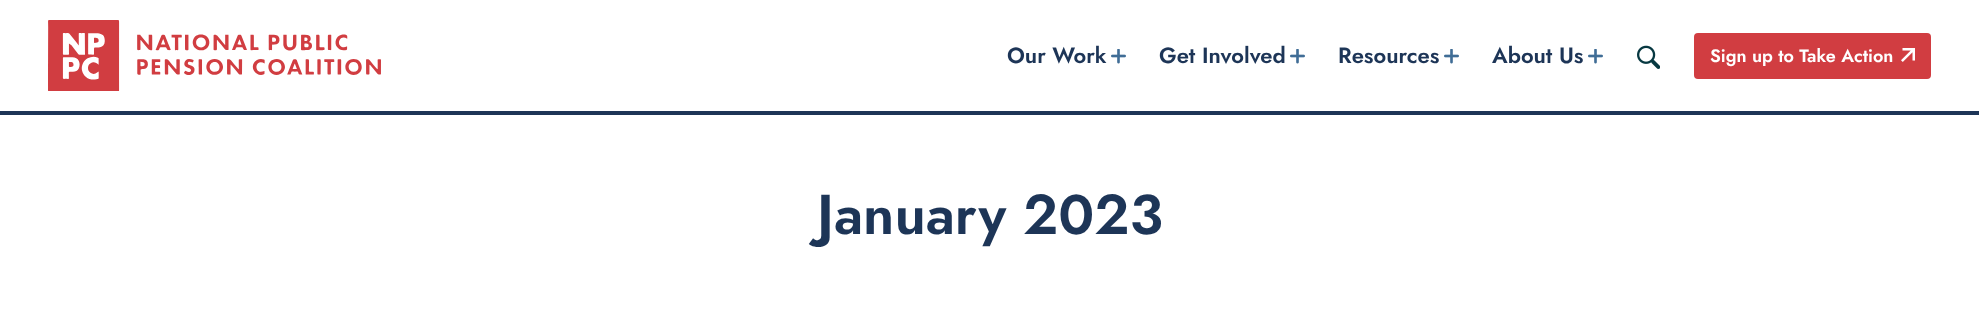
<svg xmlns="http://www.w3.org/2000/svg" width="1979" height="310">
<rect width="100%" height="100%" fill="#fff"/>
<rect y="111" width="1979" height="4" fill="#1d3557"/>
<image x="48" y="20" width="333" height="71" href="media/1.png"/>
<text x="1007" y="63" style="font-family:Jost;font-size:22px;font-weight:600;fill:#1d3557">Our Work</text>
<image x="1111" y="49" width="15" height="15" href="media/2.png"/>
<text x="1159" y="63" style="font-family:Jost;font-size:22px;font-weight:600;fill:#1d3557">Get Involved</text>
<image x="1290" y="49" width="15" height="15" href="media/2.png"/>
<text x="1338" y="63" style="font-family:Jost;font-size:22px;font-weight:600;fill:#1d3557">Resources</text>
<image x="1444" y="49" width="15" height="15" href="media/2.png"/>
<text x="1492" y="63" style="font-family:Jost;font-size:22px;font-weight:600;fill:#1d3557">About Us</text>
<image x="1588" y="49" width="15" height="15" href="media/2.png"/>
<image x="1637" y="45" width="23" height="24" href="media/3.png"/>
<rect x="1694" y="33" width="237" height="46" rx="4" fill="#d13d41"/>
<text x="1710" y="62" style="font-family:Jost;font-size:18px;font-weight:600;fill:#fff">Sign up to Take Action</text>
<image x="1901" y="48" width="14" height="14" href="media/4.png"/>
<text x="817" y="234" style="font-family:Jost;font-size:56px;font-weight:600;fill:#1d3557">January 2023</text>
</svg>
